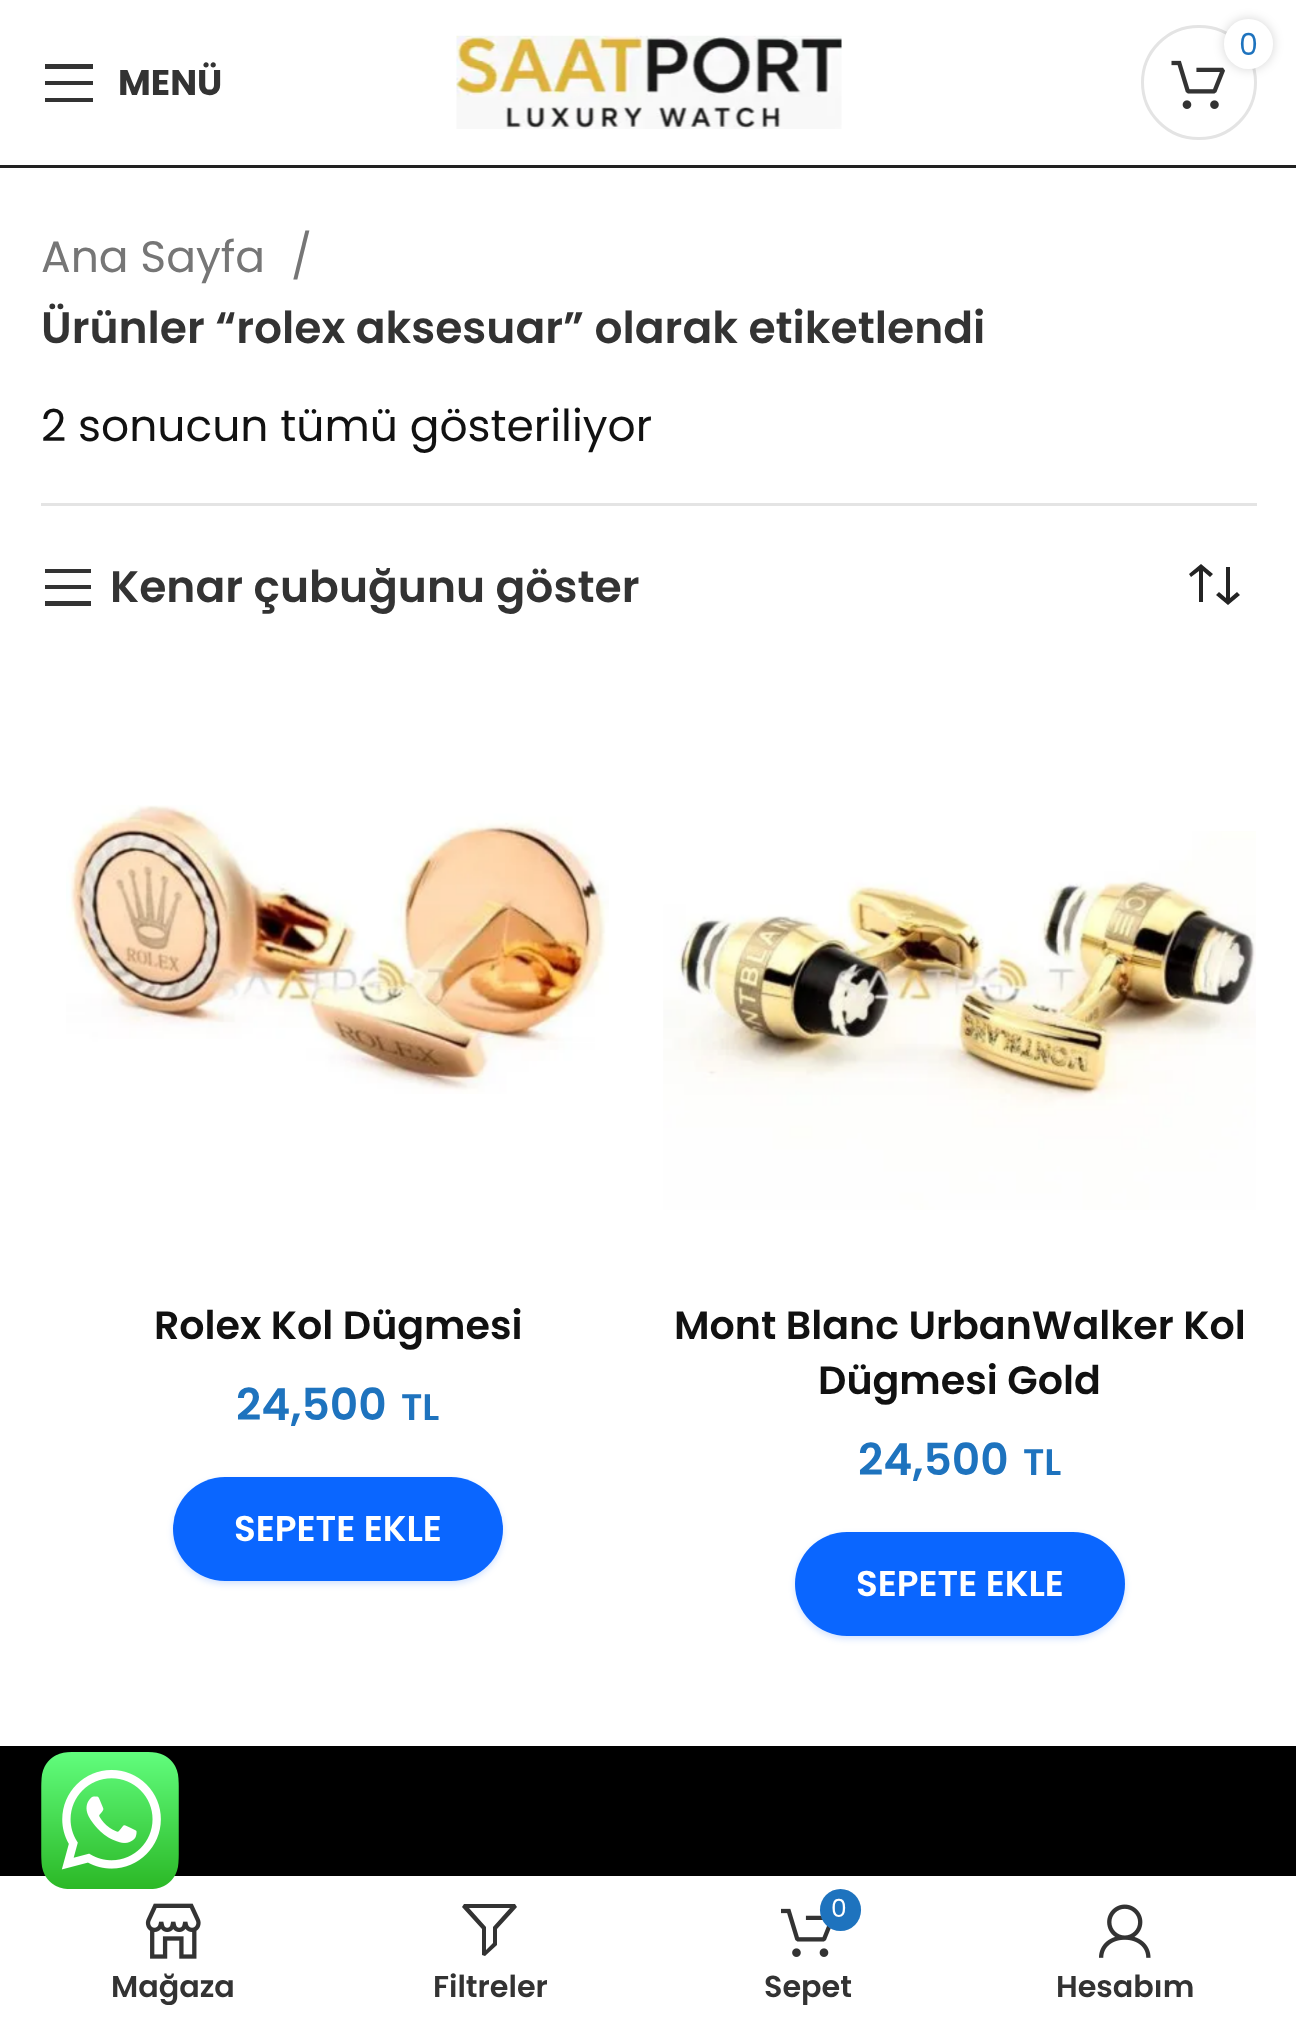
<svg xmlns="http://www.w3.org/2000/svg" width="1296" height="2025">
<defs>
<clipPath id="clip1"><rect x="41" y="1969" width="264" height="36"/></clipPath>
</defs>
<rect width="100%" height="100%" fill="#fff"/>
<path d="M45 69h48v-5h-48zm0 16h48v-4h-48zm0 17h48v-4h-48z" fill="#333"/>
<text x="118" y="95" style="font-family:Poppins;font-size:35.75px;font-weight:bold;fill:#333">MENÜ</text>
<image x="456" y="35" width="386" height="94" href="media/1.png"/>
<rect x="1142.5" y="26.5" width="113" height="112" rx="56" fill="none" stroke="#e4e4e4" stroke-width="3"/>
<image x="1171" y="60" width="54" height="49" href="media/2.png"/>
<rect x="1224" y="19" width="49" height="50" rx="24.5" fill="#0000002b" filter="blur(5.5px)"/>
<rect x="1224" y="19" width="49" height="50" rx="24.5" fill="#fff"/>
<text x="1239" y="55" style="font-family:Poppins;font-size:30.25px;fill:#1e73be">0</text>
<rect y="165" width="1296" height="3" fill="#212121"/>
<rect x="41" y="503" width="1216" height="3" fill="#e4e4e4"/>
<text x="41" y="272" style="font-family:Poppins;font-size:44px;fill:#767676">Ana Sayfa</text>
<text x="291" y="272" style="font-family:Poppins;font-size:44px;fill:#767676">/</text>
<text x="41" y="343" style="font-family:Poppins;font-size:44px;font-weight:600;fill:#333">Ürünler “rolex aksesuar” olarak etiketlendi</text>
<text x="41" y="441" style="font-family:Poppins;font-size:44px;fill:#111">2 sonucun tümü gösteriliyor</text>
<path d="M45 573h46v-4h-46zm0 16h46v-4h-46zm0 17h46v-5h-46z" fill="#333"/>
<text x="110" y="602" style="font-family:Poppins;font-size:44px;font-weight:600;fill:#333">Kenar çubuğunu göster</text>
<path d="M1201 564l-12 10l2 3l8-6v31h4v-31l7 6l3-3zm27 41l12-10l-3-3l-7 6v-31h-4v31l-7-6l-3 3z" fill="#242424"/>
<image x="66" y="805" width="543" height="289" href="media/3.png"/>
<text x="154" y="1339" style="font-family:Poppins;font-size:39.6px;font-weight:600;fill:#111">Rolex Kol Dügmesi</text>
<text x="236" y="1420" style="font-family:Poppins;font-size:44px;font-weight:600;fill:#1e73be">24,500</text>
<text x="401" y="1420" style="font-family:Poppins;font-size:37px;font-weight:600;fill:#1e73be">TL</text>
<rect x="173" y="1480" width="330" height="104" rx="52" fill="#0a66ff2e" filter="blur(3px)"/>
<rect x="173" y="1477" width="330" height="104" rx="52" fill="#0a66ff"/>
<text x="234" y="1541" style="font-family:Poppins;font-size:35.75px;font-weight:600;fill:#fff">SEPETE EKLE</text>
<image x="663" y="831" width="593" height="379" href="media/4.png"/>
<text x="674" y="1339" style="font-family:Poppins;font-size:39.6px;font-weight:600;fill:#111">Mont Blanc UrbanWalker Kol</text>
<text x="818" y="1394" style="font-family:Poppins;font-size:39.6px;font-weight:600;fill:#111">Dügmesi Gold</text>
<text x="858" y="1475" style="font-family:Poppins;font-size:44px;font-weight:600;fill:#1e73be">24,500</text>
<text x="1023" y="1475" style="font-family:Poppins;font-size:37px;font-weight:600;fill:#1e73be">TL</text>
<rect x="795" y="1535" width="330" height="104" rx="52" fill="#0a66ff2e" filter="blur(3px)"/>
<rect x="795" y="1532" width="330" height="104" rx="52" fill="#0a66ff"/>
<text x="856" y="1596" style="font-family:Poppins;font-size:35.75px;font-weight:600;fill:#fff">SEPETE EKLE</text>
<rect y="1746" width="1296" height="130" fill="#000"/>
<rect y="1876" width="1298" height="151" fill="#0000001f" filter="blur(12.5px)"/>
<rect y="1876" width="1296" height="149" fill="#fff"/>
<image x="41" y="1752" width="138" height="137" href="media/5.png"/>
<image x="145" y="1903" width="56" height="56" href="media/6.png"/>
<g clip-path="url(#clip1)">
<text x="111" y="1997" style="font-family:Poppins;font-size:30.25px;font-weight:600;fill:#333">Mağaza</text>
</g>
<path d="M464 1904l-2 3l20 22v26l3 1l12-11v-16l20-22l-2-3zm5 4h41l-17 19v16l-7 7v-23z" fill="#333"/>
<text x="433" y="1997" style="font-family:Poppins;font-size:30.25px;font-weight:600;fill:#333">Filtreler</text>
<image x="781" y="1908" width="50" height="49" href="media/7.png"/>
<rect x="820" y="1889" width="41" height="42" rx="20.5" fill="#1e73be"/>
<text x="831" y="1917" style="font-family:Poppins;font-size:25px;fill:#fff">0</text>
<text x="764" y="1997" style="font-family:Poppins;font-size:30.25px;font-weight:600;fill:#333">Sepet</text>
<image x="1099" y="1904" width="52" height="54" href="media/8.png"/>
<text x="1056" y="1997" style="font-family:Poppins;font-size:30.25px;font-weight:600;fill:#333">Hesabım</text>
</svg>
